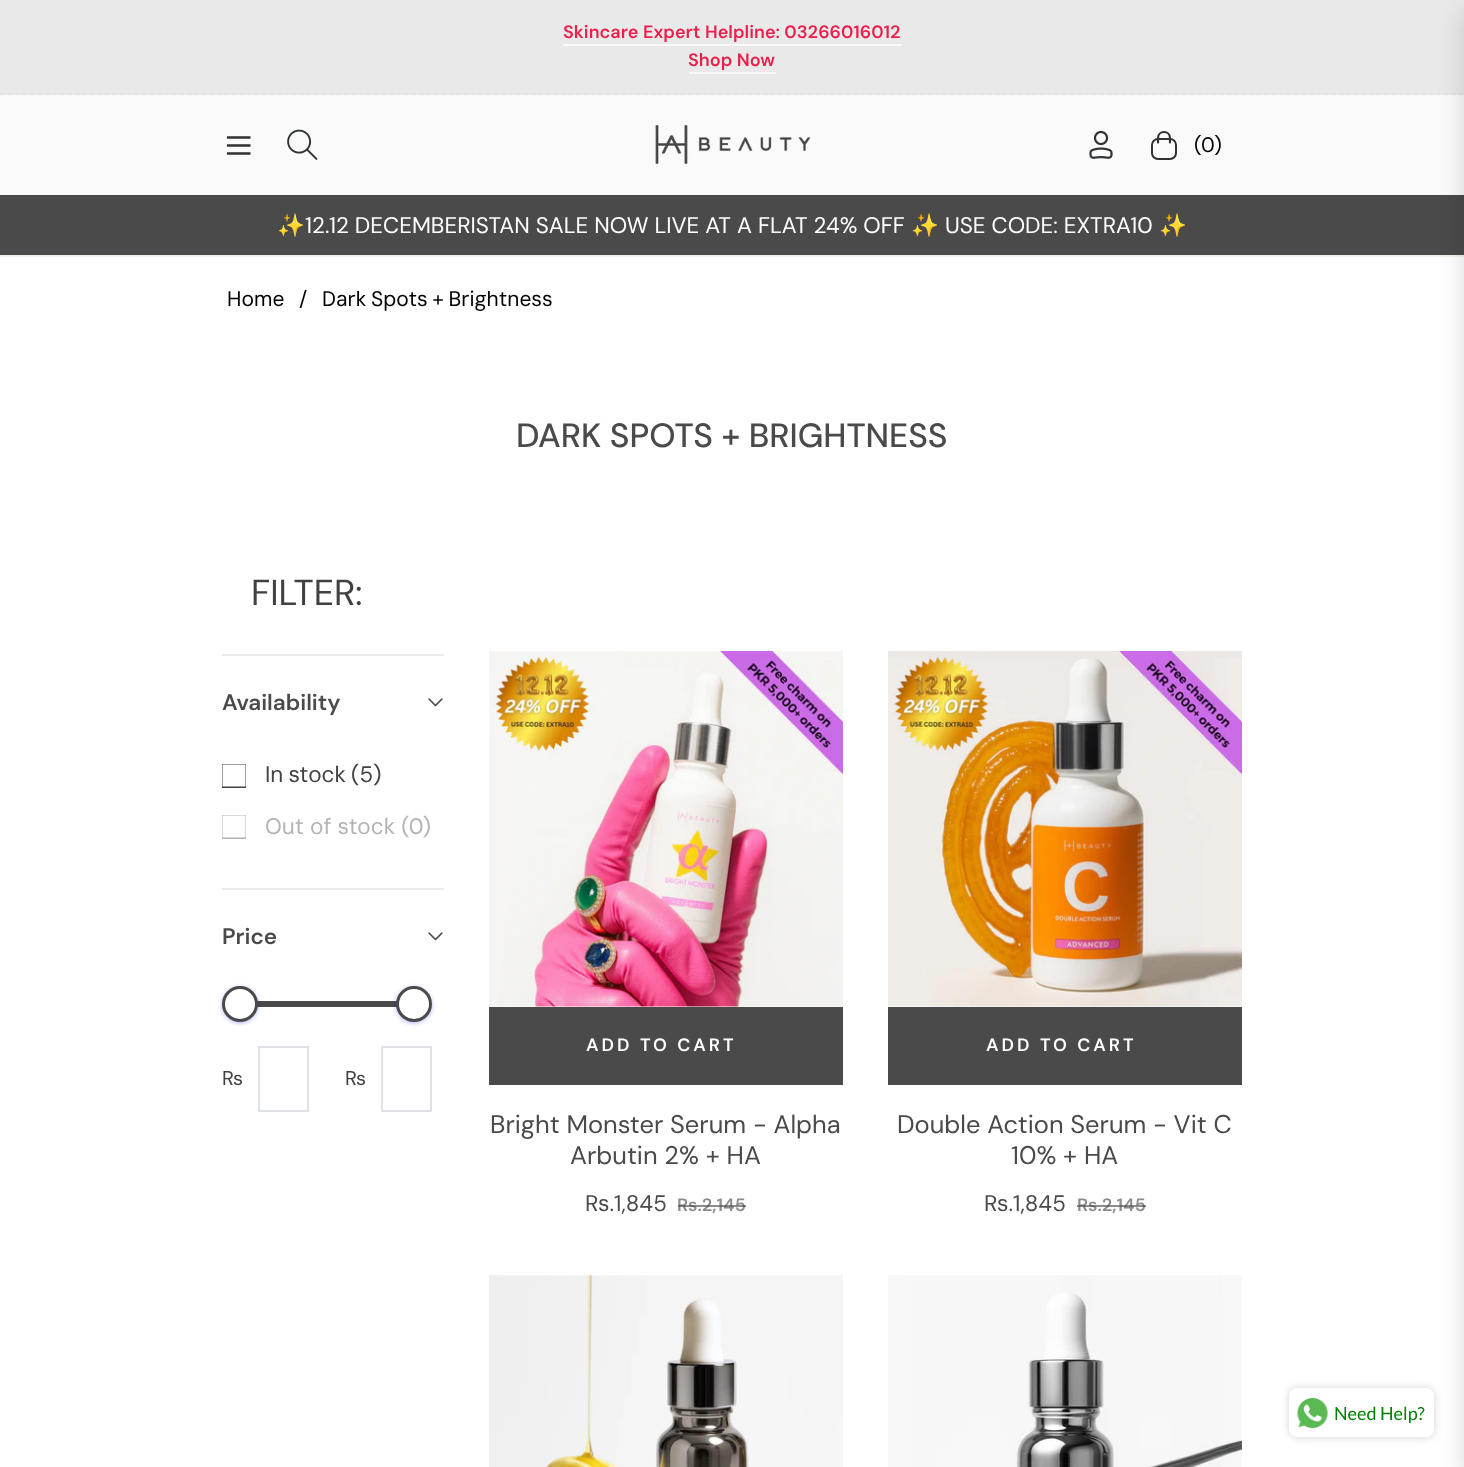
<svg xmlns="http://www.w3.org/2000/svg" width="1464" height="1467">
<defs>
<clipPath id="clip1"><rect x="227" y="134" width="24" height="24"/></clipPath>
<clipPath id="clip2"><rect x="222" y="764" width="24" height="24"/></clipPath>
<clipPath id="clip3"><rect x="222" y="815" width="24" height="24"/></clipPath>
</defs>
<rect width="100%" height="100%" fill="#fafafa"/>
<rect width="1464" height="95" fill="#e9e9e9"/>
<path d="M0 94h1464" fill="none" stroke="#e1e1e1" stroke-width="1.5" stroke-dasharray="4.5 2.98"/>
<text x="563" y="38" style="font-family:'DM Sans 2';font-size:18px;font-weight:600;fill:#eb1f4c">Skincare Expert Helpline: 03266016012</text>
<rect x="563" y="44" width="339" height="2" fill="#fafafa"/>
<text x="688" y="66" style="font-family:'DM Sans 2';font-size:18px;font-weight:600;fill:#eb1f4c">Shop Now</text>
<rect x="689" y="72" width="87" height="2" fill="#fafafa"/>
<g clip-path="url(#clip1)">
<path d="M226.5 137.5h24m-24 16h24zm0-8h24z" fill="none" stroke="#2f3336" stroke-width="2.7"/>
</g>
<image x="287" y="129" width="31" height="31" href="media/1.png"/>
<image x="655" y="125" width="156" height="39" href="media/2.png"/>
<image x="1089" y="131" width="24" height="28" href="media/3.png"/>
<rect x="1152" y="139" width="24" height="20" rx="6" fill="none" stroke="#2f3336" stroke-width="2"/>
<path d="M1170 142.5v-4.5c0-3.5-2.5-6-6-6c-3.5 0-6 2.5-6 6v4.5" fill="none" stroke="#2f3336" stroke-width="2.2" stroke-linecap="round"/>
<text x="1194" y="152" style="font-family:'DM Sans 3';font-size:21px;fill:#000">(0)</text>
<rect y="195" width="1464" height="60" fill="#4a4a4a"/>
<rect y="257" width="1464" height="1210" fill="#fff"/>
<rect y="255" width="1464" height="2" fill="#f4efe9"/>
<rect x="1464" y="12" width="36" height="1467" fill="#00000026" filter="blur(12px)"/>
<text x="277" y="233" style="font-family:Noto Color Emoji;font-size:22.5px;fill:#fff">✨</text>
<text x="305" y="233" style="font-family:DM Sans;font-size:22.5px;fill:#fff">12.12 DECEMBERISTAN SALE NOW LIVE AT A FLAT 24% OFF</text>
<text x="911" y="233" style="font-family:Noto Color Emoji;font-size:22.5px;fill:#fff">✨</text>
<text x="945" y="233" style="font-family:DM Sans;font-size:22.5px;fill:#fff">USE CODE: EXTRA10</text>
<text x="1159" y="233" style="font-family:Noto Color Emoji;font-size:22.5px;fill:#fff">✨</text>
<text x="227" y="306" style="font-family:'DM Sans 3';font-size:21px;fill:#000">Home</text>
<text x="299" y="306" style="font-family:'DM Sans 3';font-size:21px;fill:#000">/</text>
<text x="322" y="306" word-spacing="-1" style="font-family:'DM Sans 3';font-size:21px;fill:#000">Dark Spots + Brightness</text>
<text x="516" y="447" style="font-family:DM Sans;font-size:33.6px;font-weight:500;fill:#4a4a4a">DARK SPOTS + BRIGHTNESS</text>
<text x="251" y="605" style="font-family:'DM Sans 2';font-size:36px;fill:#414141">FILTER:</text>
<rect x="222" y="654" width="222" height="2" fill="#ececec"/>
<text x="222" y="710" style="font-family:DM Sans;font-size:22.5px;font-weight:600;fill:#4a4a4a">Availability</text>
<image x="428" y="698" width="15" height="9" href="media/4.png"/>
<g clip-path="url(#clip2)">
<rect x="221.75" y="763.75" width="24.5" height="23.5" fill="none" stroke="#414141" stroke-width="1.5"/>
</g>
<text x="265" y="782" word-spacing="-1" style="font-family:'DM Sans 3';font-size:22.5px;fill:#414141">In stock (5)</text>
<g clip-path="url(#clip3)">
<rect x="221.75" y="814.75" width="24.5" height="23.5" fill="none" stroke="#b3b3b3" stroke-width="1.5"/>
</g>
<text x="265" y="834" style="font-family:'DM Sans 3';font-size:22.5px;fill:#b3b3b3">Out of stock (0)</text>
<rect x="222" y="888" width="222" height="2" fill="#ececec"/>
<text x="222" y="944" style="font-family:DM Sans;font-size:22.5px;font-weight:600;fill:#4a4a4a">Price</text>
<image x="428" y="932" width="15" height="9" href="media/4.png"/>
<rect x="257" y="1001" width="140" height="6" fill="#4a4a4a"/>
<rect x="222" y="987" width="36" height="36" rx="18" fill="#0000ff4d" filter="blur(2px)"/>
<circle cx="240" cy="1004" r="16.5" fill="#fff" stroke="#4a4a4a" stroke-width="3"/>
<rect x="396" y="987" width="36" height="36" rx="18" fill="#0000ff4d" filter="blur(2px)"/>
<circle cx="414" cy="1004" r="16.5" fill="#fff" stroke="#4a4a4a" stroke-width="3"/>
<text x="222" y="1085" style="font-family:'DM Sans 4';font-size:20px;fill:#414141">₨</text>
<rect x="259" y="1047" width="49" height="64" fill="none" stroke="#dee2e6" stroke-width="2"/>
<text x="345" y="1085" style="font-family:'DM Sans 4';font-size:20px;fill:#414141">₨</text>
<rect x="382" y="1047" width="49" height="64" fill="none" stroke="#dee2e6" stroke-width="2"/>
<image x="489" y="651" width="354" height="356" href="media/5.png"/>
<rect x="489" y="1007" width="354" height="78" fill="#4a4a4a"/>
<text x="586" y="1051" style="font-family:'DM Sans 2';font-size:18px;font-weight:600;letter-spacing:3px;fill:#fff">ADD TO CART</text>
<text x="490" y="1133" style="font-family:'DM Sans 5';font-size:25.5px;fill:#4a4a4a">Bright Monster Serum - Alpha</text>
<text x="570" y="1164" style="font-family:'DM Sans 5';font-size:25.5px;fill:#4a4a4a">Arbutin 2% + HA</text>
<text x="585" y="1211" style="font-family:'DM Sans 3';font-size:22.5px;fill:#4a4a4a">Rs.1,845</text>
<text x="677" y="1211" style="font-family:'DM Sans 2';font-size:18px;font-weight:600;fill:#8d8d8d">Rs.2,145</text>
<rect x="678" y="1205" width="68" height="2" fill="#41414199"/>
<image x="888" y="651" width="354" height="356" href="media/6.png"/>
<rect x="888" y="1007" width="354" height="78" fill="#4a4a4a"/>
<text x="986" y="1051" style="font-family:'DM Sans 2';font-size:18px;font-weight:600;letter-spacing:3px;fill:#fff">ADD TO CART</text>
<text x="897" y="1133" style="font-family:'DM Sans 5';font-size:25.5px;fill:#4a4a4a">Double Action Serum - Vit C</text>
<text x="1011" y="1164" style="font-family:'DM Sans 5';font-size:25.5px;fill:#4a4a4a">10% + HA</text>
<text x="984" y="1211" style="font-family:'DM Sans 3';font-size:22.5px;fill:#4a4a4a">Rs.1,845</text>
<text x="1077" y="1211" style="font-family:'DM Sans 2';font-size:18px;font-weight:600;fill:#8d8d8d">Rs.2,145</text>
<rect x="1077" y="1205" width="69" height="2" fill="#41414199"/>
<image x="489" y="1275" width="354" height="192" href="media/7.png"/>
<image x="888" y="1275" width="354" height="192" href="media/8.png"/>
<rect x="1289" y="1388" width="145" height="49" rx="8" fill="#d3d3d3" filter="blur(4px)"/>
<rect x="1289" y="1388" width="145" height="49" rx="8" fill="#fff"/>
<image x="1297" y="1398" width="31" height="30" href="media/9.png"/>
<text x="1334" y="1420" style="font-family:Lato;font-size:18px;fill:#008000">Need Help?</text>
</svg>
